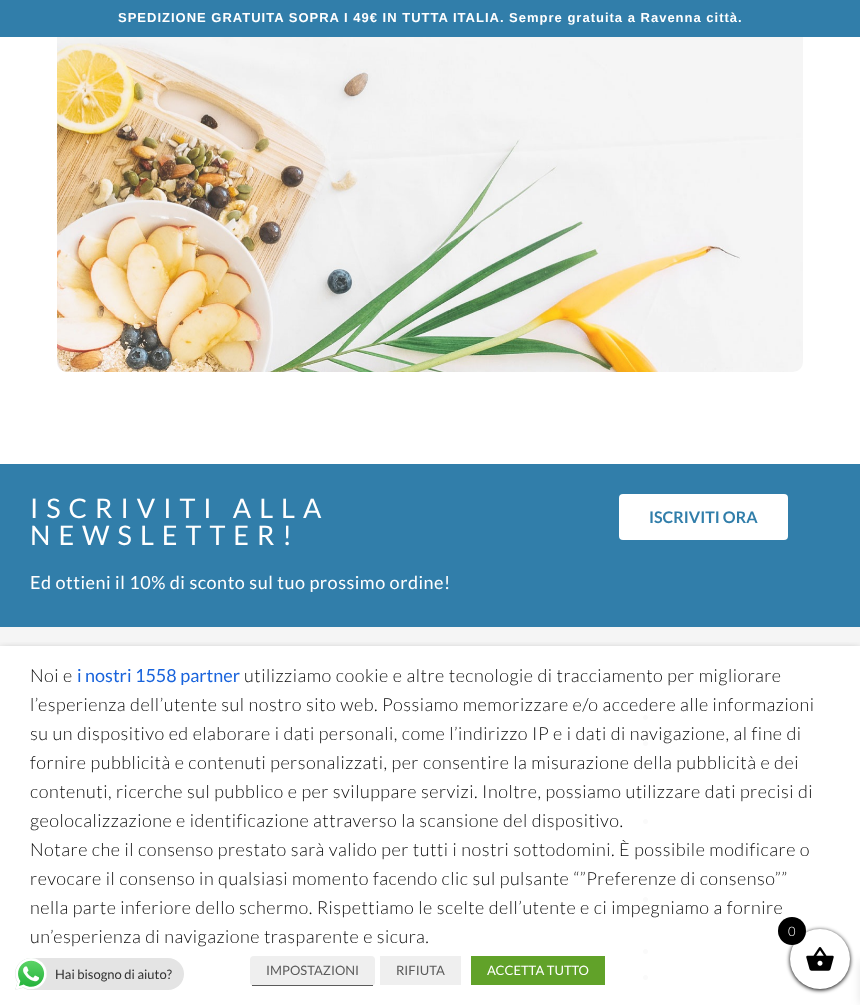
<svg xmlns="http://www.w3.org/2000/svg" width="860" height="1005">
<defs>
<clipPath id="clip1"><rect x="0" y="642" width="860" height="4"/></clipPath>
</defs>
<rect width="100%" height="100%" fill="#fff"/>
<rect width="860" height="37" fill="#317eaa"/>
<text x="118" y="22" style="font-family:Liberation Sans;font-size:13px;font-weight:bold;letter-spacing:1px;fill:#fff">SPEDIZIONE GRATUITA SOPRA I 49€ IN TUTTA ITALIA. Sempre gratuita a Ravenna città.</text>
<image x="57" y="37" width="746" height="335" href="media/1.png"/>
<rect y="464" width="860" height="163" fill="#317eaa"/>
<text x="30" y="518" style="font-family:Lato;font-size:27px;letter-spacing:8px;fill:#fff">ISCRIVITI ALLA</text>
<text x="30" y="545" style="font-family:Lato;font-size:27px;letter-spacing:8px;fill:#fff">NEWSLETTER!</text>
<text x="30" y="589" style="font-family:Lato;font-size:18px;letter-spacing:0.5px;fill:#fff">Ed ottieni il 10% di sconto sul tuo prossimo ordine!</text>
<rect x="619" y="494" width="169" height="46" rx="4" fill="#fff"/>
<text x="649" y="523" style="font-family:Lato;font-size:16px;font-weight:bold;fill:#317eaa">ISCRIVITI ORA</text>
<rect y="627" width="860" height="19" fill="#f5f5f5"/>
<circle cx="645.5" cy="717.5" r="2.5" fill="#fafafa"/>
<circle cx="645.5" cy="743.5" r="2.5" fill="#fafafa"/>
<circle cx="645.5" cy="821.5" r="2.5" fill="#fafafa"/>
<circle cx="645.5" cy="899.5" r="2.5" fill="#fafafa"/>
<circle cx="645.5" cy="951.5" r="2.5" fill="#fafafa"/>
<circle cx="645.5" cy="977.5" r="2.5" fill="#fafafa"/>
<g clip-path="url(#clip1)">
<rect y="651" width="860" height="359" fill="#00000080" filter="blur(5px)"/>
</g>
<text x="30" y="682" style="font-family:Lato;font-size:18px;font-weight:300;letter-spacing:0.5px;fill:#0a0a0a">Noi e</text>
<text x="77" y="682" style="font-family:Lato;font-size:18px;fill:#1863dc">i nostri 1558 partner</text>
<text x="244" y="682" style="font-family:Lato;font-size:18px;font-weight:300;letter-spacing:0.5px;fill:#0a0a0a">utilizziamo cookie e altre tecnologie di tracciamento per migliorare</text>
<text x="30" y="711" style="font-family:Lato;font-size:18px;font-weight:300;letter-spacing:0.5px;fill:#0a0a0a">l’esperienza dell’utente sul nostro sito web. Possiamo memorizzare e/o accedere alle informazioni</text>
<text x="30" y="740" style="font-family:Lato;font-size:18px;font-weight:300;letter-spacing:0.5px;fill:#0a0a0a">su un dispositivo ed elaborare i dati personali, come l’indirizzo IP e i dati di navigazione, al fine di</text>
<text x="30" y="769" style="font-family:Lato;font-size:18px;font-weight:300;letter-spacing:0.5px;fill:#0a0a0a">fornire pubblicità e contenuti personalizzati, per consentire la misurazione della pubblicità e dei</text>
<text x="30" y="798" style="font-family:Lato;font-size:18px;font-weight:300;letter-spacing:0.5px;fill:#0a0a0a">contenuti, ricerche sul pubblico e per sviluppare servizi. Inoltre, possiamo utilizzare dati precisi di</text>
<text x="30" y="827" style="font-family:Lato;font-size:18px;font-weight:300;letter-spacing:0.5px;fill:#0a0a0a">geolocalizzazione e identificazione attraverso la scansione del dispositivo.</text>
<text x="30" y="856" style="font-family:Lato;font-size:18px;font-weight:300;letter-spacing:0.5px;fill:#0a0a0a">Notare che il consenso prestato sarà valido per tutti i nostri sottodomini. È possibile modificare o</text>
<text x="30" y="885" style="font-family:Lato;font-size:18px;font-weight:300;letter-spacing:0.5px;fill:#0a0a0a">revocare il consenso in qualsiasi momento facendo clic sul pulsante “”Preferenze di consenso””</text>
<text x="30" y="914" style="font-family:Lato;font-size:18px;font-weight:300;letter-spacing:0.5px;fill:#0a0a0a">nella parte inferiore dello schermo. Rispettiamo le scelte dell’utente e ci impegniamo a fornire</text>
<text x="30" y="943" style="font-family:Lato;font-size:18px;font-weight:300;letter-spacing:0.5px;fill:#0a0a0a">un’esperienza di navigazione trasparente e sicura.</text>
<rect x="250" y="956" width="125" height="30" rx="4" fill="#efefef"/>
<rect x="252" y="985" width="121" height="1" fill="#5b5b5b"/>
<text x="266" y="975" style="font-family:Lato;font-size:13px;fill:#5b5b5b">IMPOSTAZIONI</text>
<rect x="380" y="956" width="81" height="29" fill="#efefef"/>
<text x="396" y="975" style="font-family:Lato;font-size:13px;fill:#5b5b5b">RIFIUTA</text>
<rect x="471" y="956" width="134" height="29" fill="#61a229"/>
<text x="487" y="975" style="font-family:Lato;font-size:13px;fill:#fff">ACCETTA TUTTO</text>
<rect x="790" y="930" width="60" height="60" rx="30" fill="#000" filter="blur(2px)"/>
<rect x="860" y="961" width="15" height="43" fill="#0000001a" filter="blur(5px)"/>
<circle cx="820" cy="959" r="30" fill="#fff"/>
<circle cx="792" cy="931" r="14" fill="#000"/>
<text x="788" y="936" style="font-family:Lato;font-size:13px;font-weight:300;fill:#fff">0</text>
<image x="806" y="947" width="28" height="24" href="media/2.png"/>
<rect x="15" y="958" width="169" height="32" rx="16" fill="#e4e4e4"/>
<image x="15" y="958" width="32" height="32" href="media/3.png"/>
<text x="55" y="979" style="font-family:Lato;font-size:13px;fill:#323232">Hai bisogno di aiuto?</text>
</svg>
